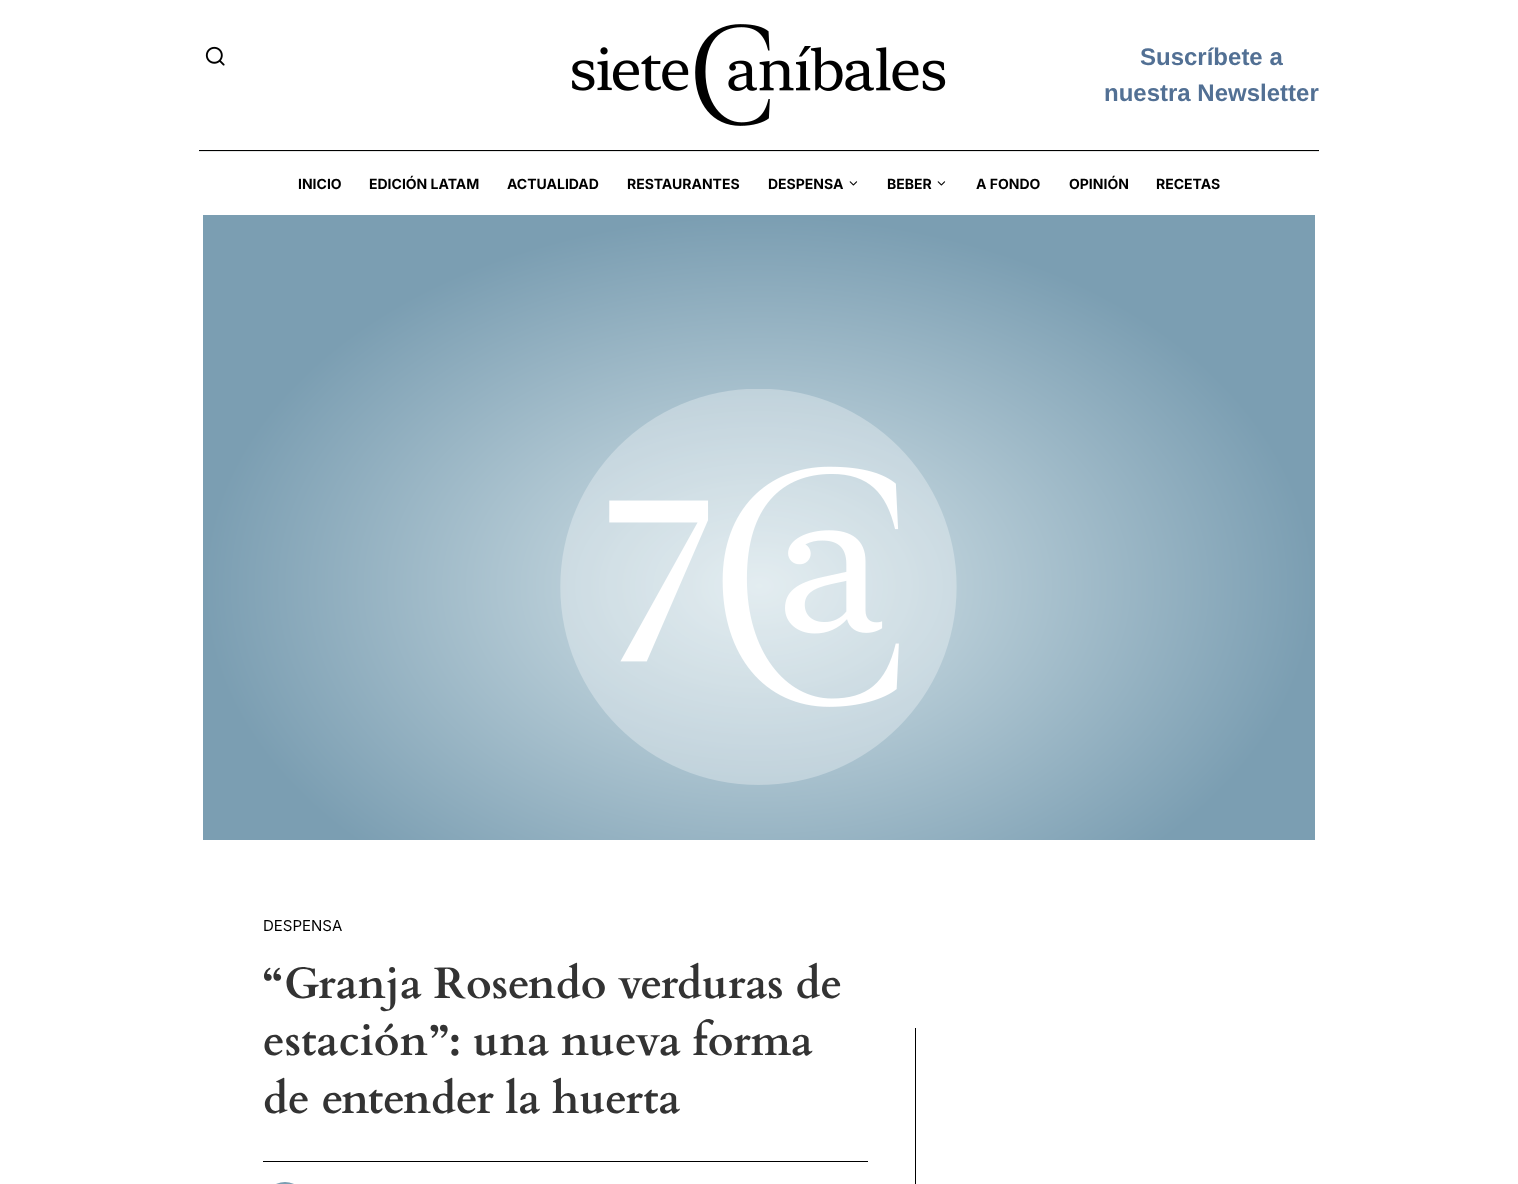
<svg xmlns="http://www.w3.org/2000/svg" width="1518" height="1184">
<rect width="100%" height="100%" fill="#fff"/>
<image x="205" y="46" width="20" height="20" href="media/1.png"/>
<image x="572" y="24" width="374" height="102" href="media/2.png"/>
<text x="1140" y="65" style="font-family:Liberation Sans;font-size:24px;font-weight:bold;fill:#527094">Suscríbete a</text>
<text x="1104" y="101" style="font-family:Liberation Sans;font-size:24px;font-weight:bold;fill:#527094">nuestra Newsletter</text>
<rect x="199" y="151" width="1120" height="1" fill="#e6e6e6"/>
<rect x="199" y="150" width="1120" height="1" fill="#000100"/>
<text x="298" y="189" style="font-family:Inter;font-size:14px;font-weight:bold;fill:#000">INICIO</text>
<text x="369" y="189" style="font-family:Inter;font-size:14px;font-weight:bold;fill:#000">EDICIÓN LATAM</text>
<text x="507" y="189" style="font-family:Inter;font-size:14px;font-weight:bold;fill:#000">ACTUALIDAD</text>
<text x="627" y="189" style="font-family:Inter;font-size:14px;font-weight:bold;fill:#000">RESTAURANTES</text>
<text x="768" y="189" style="font-family:Inter;font-size:14px;font-weight:bold;fill:#000">DESPENSA</text>
<image x="849" y="181" width="9" height="5" href="media/3.png"/>
<text x="887" y="189" style="font-family:Inter;font-size:14px;font-weight:bold;fill:#000">BEBER</text>
<image x="937" y="181" width="9" height="5" href="media/3.png"/>
<text x="976" y="189" style="font-family:Inter;font-size:14px;font-weight:bold;fill:#000">A FONDO</text>
<text x="1069" y="189" style="font-family:Inter;font-size:14px;font-weight:bold;fill:#000">OPINIÓN</text>
<text x="1156" y="189" style="font-family:Inter;font-size:14px;font-weight:bold;fill:#000">RECETAS</text>
<image x="203" y="215" width="1112" height="625" href="media/4.png"/>
<text x="263" y="931" style="font-family:Inter;font-size:15px;fill:#000">DESPENSA</text>
<text x="263" y="998" style="font-family:Cardo;font-size:44px;font-weight:bold;fill:#333">“Granja Rosendo verduras de</text>
<text x="263" y="1055" style="font-family:Cardo;font-size:44px;font-weight:bold;fill:#333">estación”: una nueva forma</text>
<text x="263" y="1113" style="font-family:Cardo;font-size:44px;font-weight:bold;fill:#333">de entender la huerta</text>
<rect x="263" y="1161" width="605" height="1" fill="#000"/>
<image x="276" y="1182" width="18" height="2" href="media/5.png"/>
<rect x="915" y="1028" width="1" height="156" fill="#000"/>
</svg>
